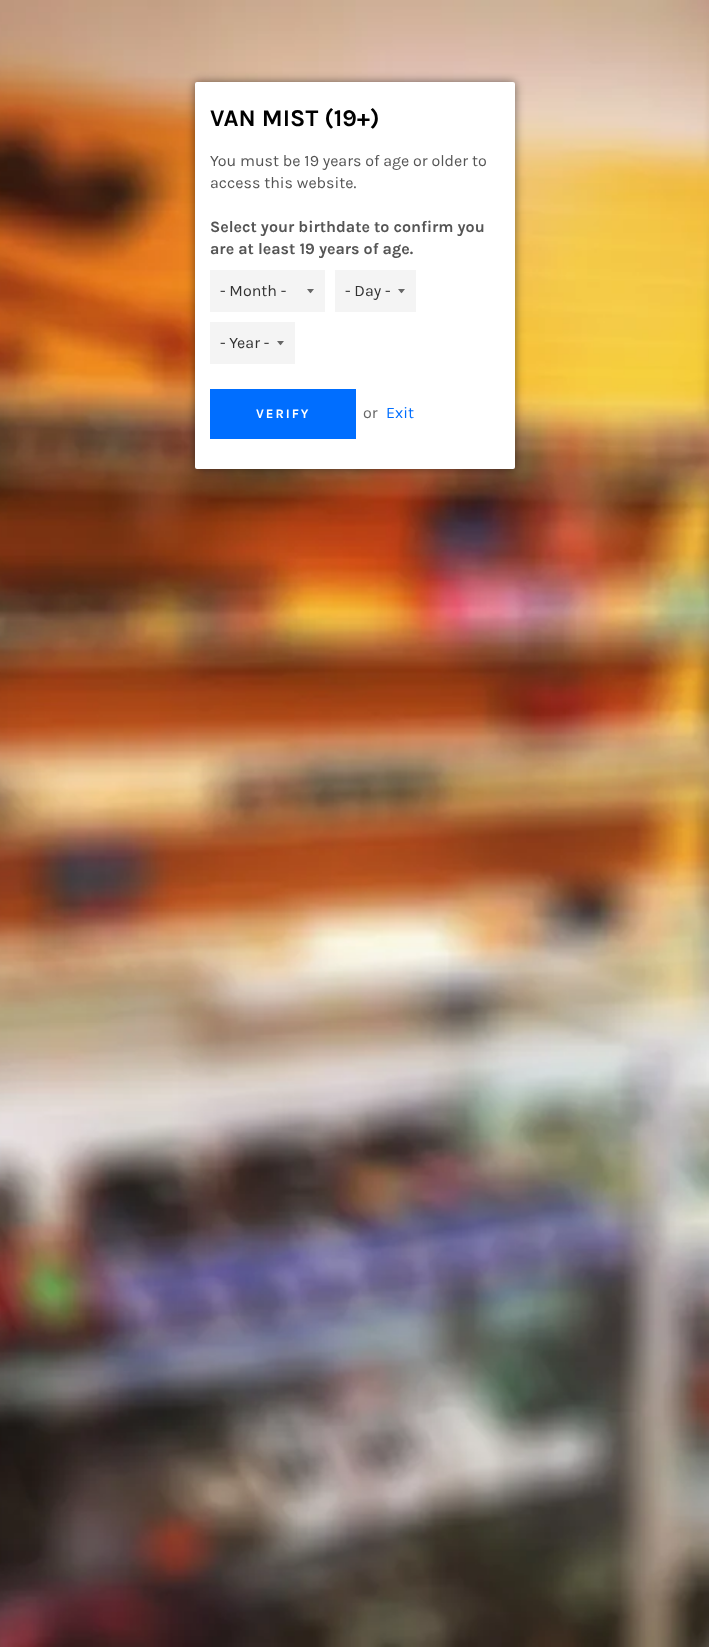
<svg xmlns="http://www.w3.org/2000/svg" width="709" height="1647">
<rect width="100%" height="100%" fill="#fff"/>
<image x="0" y="0" width="709" height="1647" href="media/1.png"/>
<rect x="195" y="82" width="320" height="387" rx="2" fill="#00000080" filter="blur(5px)"/>
<rect x="195" y="82" width="320" height="387" rx="2" fill="#fff"/>
<text x="210" y="126" style="font-family:Karla;font-size:24px;font-weight:bold;fill:#000">VAN MIST (19+)</text>
<text x="210" y="166" style="font-family:Karla;font-size:16px;fill:#555">You must be 19 years of age or older to</text>
<text x="210" y="188" style="font-family:Karla;font-size:16px;fill:#555">access this website.</text>
<text x="210" y="232" style="font-family:Karla;font-size:16px;font-weight:bold;fill:#555">Select your birthdate to confirm you</text>
<text x="210" y="254" style="font-family:Karla;font-size:16px;font-weight:bold;fill:#555">are at least 19 years of age.</text>
<rect x="210" y="270" width="115" height="42" fill="#f4f4f4"/>
<path d="M307 289c4.5 5.5 2.5 5.5 7 0z" fill="#666"/>
<text x="220" y="296" style="font-family:Karla;font-size:16px;fill:#333">- Month -</text>
<rect x="335" y="270" width="81" height="42" fill="#f4f4f4"/>
<path d="M398 289c4.5 5.5 2.5 5.5 7 0z" fill="#666"/>
<text x="345" y="296" style="font-family:Karla;font-size:16px;fill:#333">- Day -</text>
<rect x="210" y="322" width="85" height="42" fill="#f4f4f4"/>
<path d="M277 341c4.5 5.5 2.5 5.5 7 0z" fill="#666"/>
<text x="220" y="348" style="font-family:Karla;font-size:16px;fill:#333">- Year -</text>
<rect x="210" y="389" width="146" height="50" fill="#006eff"/>
<text x="256" y="418" style="font-family:Karla;font-size:13px;font-weight:bold;letter-spacing:2px;fill:#fff">VERIFY</text>
<text x="363" y="418" style="font-family:Karla;font-size:16px;fill:#666">or</text>
<text x="386" y="418" style="font-family:Karla;font-size:16px;fill:#006eff">Exit</text>
</svg>
